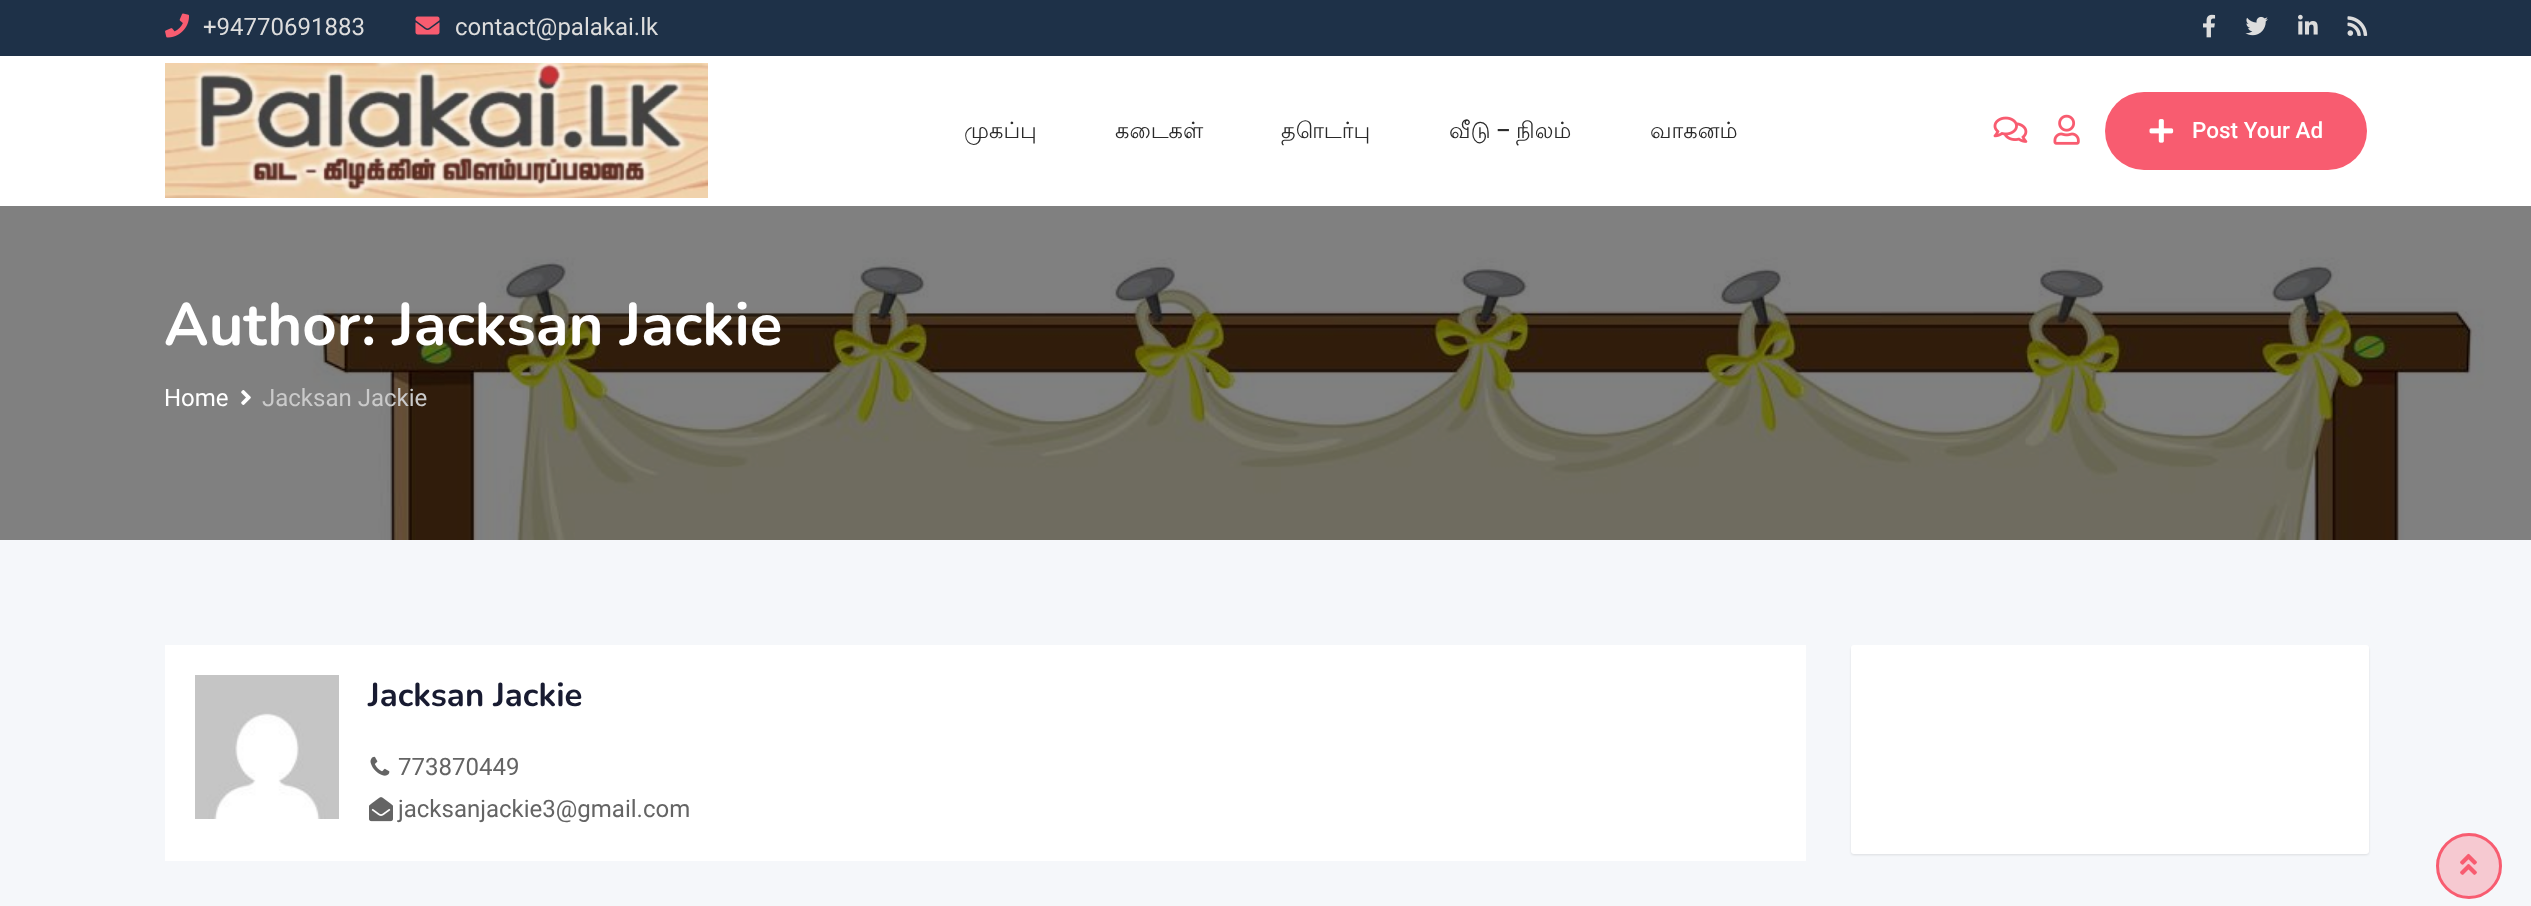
<svg xmlns="http://www.w3.org/2000/svg" width="2531" height="906">
<rect width="100%" height="100%" fill="#fff"/>
<rect width="2531" height="56" fill="#1e3148"/>
<image x="165" y="13" width="24" height="25" href="media/1.png"/>
<text x="203" y="35" style="font-family:Roboto;font-size:24px;fill:#ddd">+94770691883</text>
<image x="415" y="16" width="25" height="19" href="media/2.png"/>
<text x="455" y="35" style="font-family:Roboto;font-size:24px;fill:#ddd">contact@palakai.lk</text>
<image x="2203" y="14" width="13" height="24" href="media/3.png"/>
<image x="2245" y="16" width="23" height="20" href="media/4.png"/>
<image x="2298" y="14" width="20" height="21" href="media/5.png"/>
<image x="2347" y="16" width="21" height="20" href="media/6.png"/>
<image x="165" y="63" width="543" height="135" href="media/7.png"/>
<text x="964" y="138" style="font-family:Lohit Tamil;font-size:22.5px;fill:#2a2a2a">முகப்பு</text>
<text x="1115" y="138" style="font-family:Lohit Tamil;font-size:22.5px;fill:#2a2a2a">கடைகள்</text>
<text x="1281" y="138" style="font-family:Lohit Tamil;font-size:22.5px;fill:#2a2a2a">தொடர்பு</text>
<text x="1449" y="138" style="font-family:Lohit Tamil;font-size:22.5px;fill:#2a2a2a">வீடு</text>
<text x="1496" y="138" style="font-family:Roboto;font-size:22.5px;font-weight:500;fill:#2a2a2a">–</text>
<text x="1516" y="138" style="font-family:Lohit Tamil;font-size:22.5px;fill:#2a2a2a">நிலம்</text>
<text x="1650" y="138" style="font-family:Lohit Tamil;font-size:22.5px;fill:#2a2a2a">வாகனம்</text>
<image x="1993" y="116" width="35" height="27" href="media/8.png"/>
<image x="2053" y="114" width="27" height="31" href="media/9.png"/>
<rect x="2105" y="92" width="262" height="78" rx="39" fill="#f85c70"/>
<image x="2149" y="119" width="25" height="24" href="media/10.png"/>
<text x="2192" y="138" style="font-family:Roboto;font-size:22.5px;font-weight:500;fill:#fff">Post Your Ad</text>
<rect y="540" width="2531" height="366" fill="#f5f7fa"/>
<image x="0" y="206" width="2531" height="334" href="media/11.png"/>
<text x="164" y="345" style="font-family:Nunito;font-size:60px;font-weight:200;fill:#fff">Author: Jacksan Jackie</text>
<text x="164" y="406" style="font-family:Roboto;font-size:24px;fill:#fff">Home</text>
<image x="241" y="390" width="10" height="15" href="media/12.png"/>
<text x="262" y="406" style="font-family:Roboto;font-size:24px;fill:#cacaca">Jacksan Jackie</text>
<rect x="165" y="645" width="1641" height="216" fill="#fff"/>
<image x="195" y="675" width="144" height="144" href="media/13.png"/>
<text x="368" y="706" style="font-family:Nunito;font-size:33px;font-weight:200;fill:#181b31">Jacksan Jackie</text>
<image x="370" y="756" width="20" height="20" href="media/14.png"/>
<text x="398" y="775" style="font-family:Roboto;font-size:24px;fill:#646464">773870449</text>
<image x="369" y="797" width="24" height="25" href="media/15.png"/>
<text x="398" y="817" style="font-family:Roboto;font-size:24px;fill:#646464">jacksanjackie3@gmail.com</text>
<rect x="1851" y="647" width="518" height="208" rx="3" fill="#0000001a" filter="blur(1px)"/>
<rect x="1851" y="645" width="518" height="209" rx="3" fill="#fff"/>
<circle cx="2469" cy="866" r="31.5" fill="#f6c9d1" stroke="#f85c70" stroke-width="3"/>
<image x="2460" y="853" width="17" height="22" href="media/16.png"/>
</svg>
